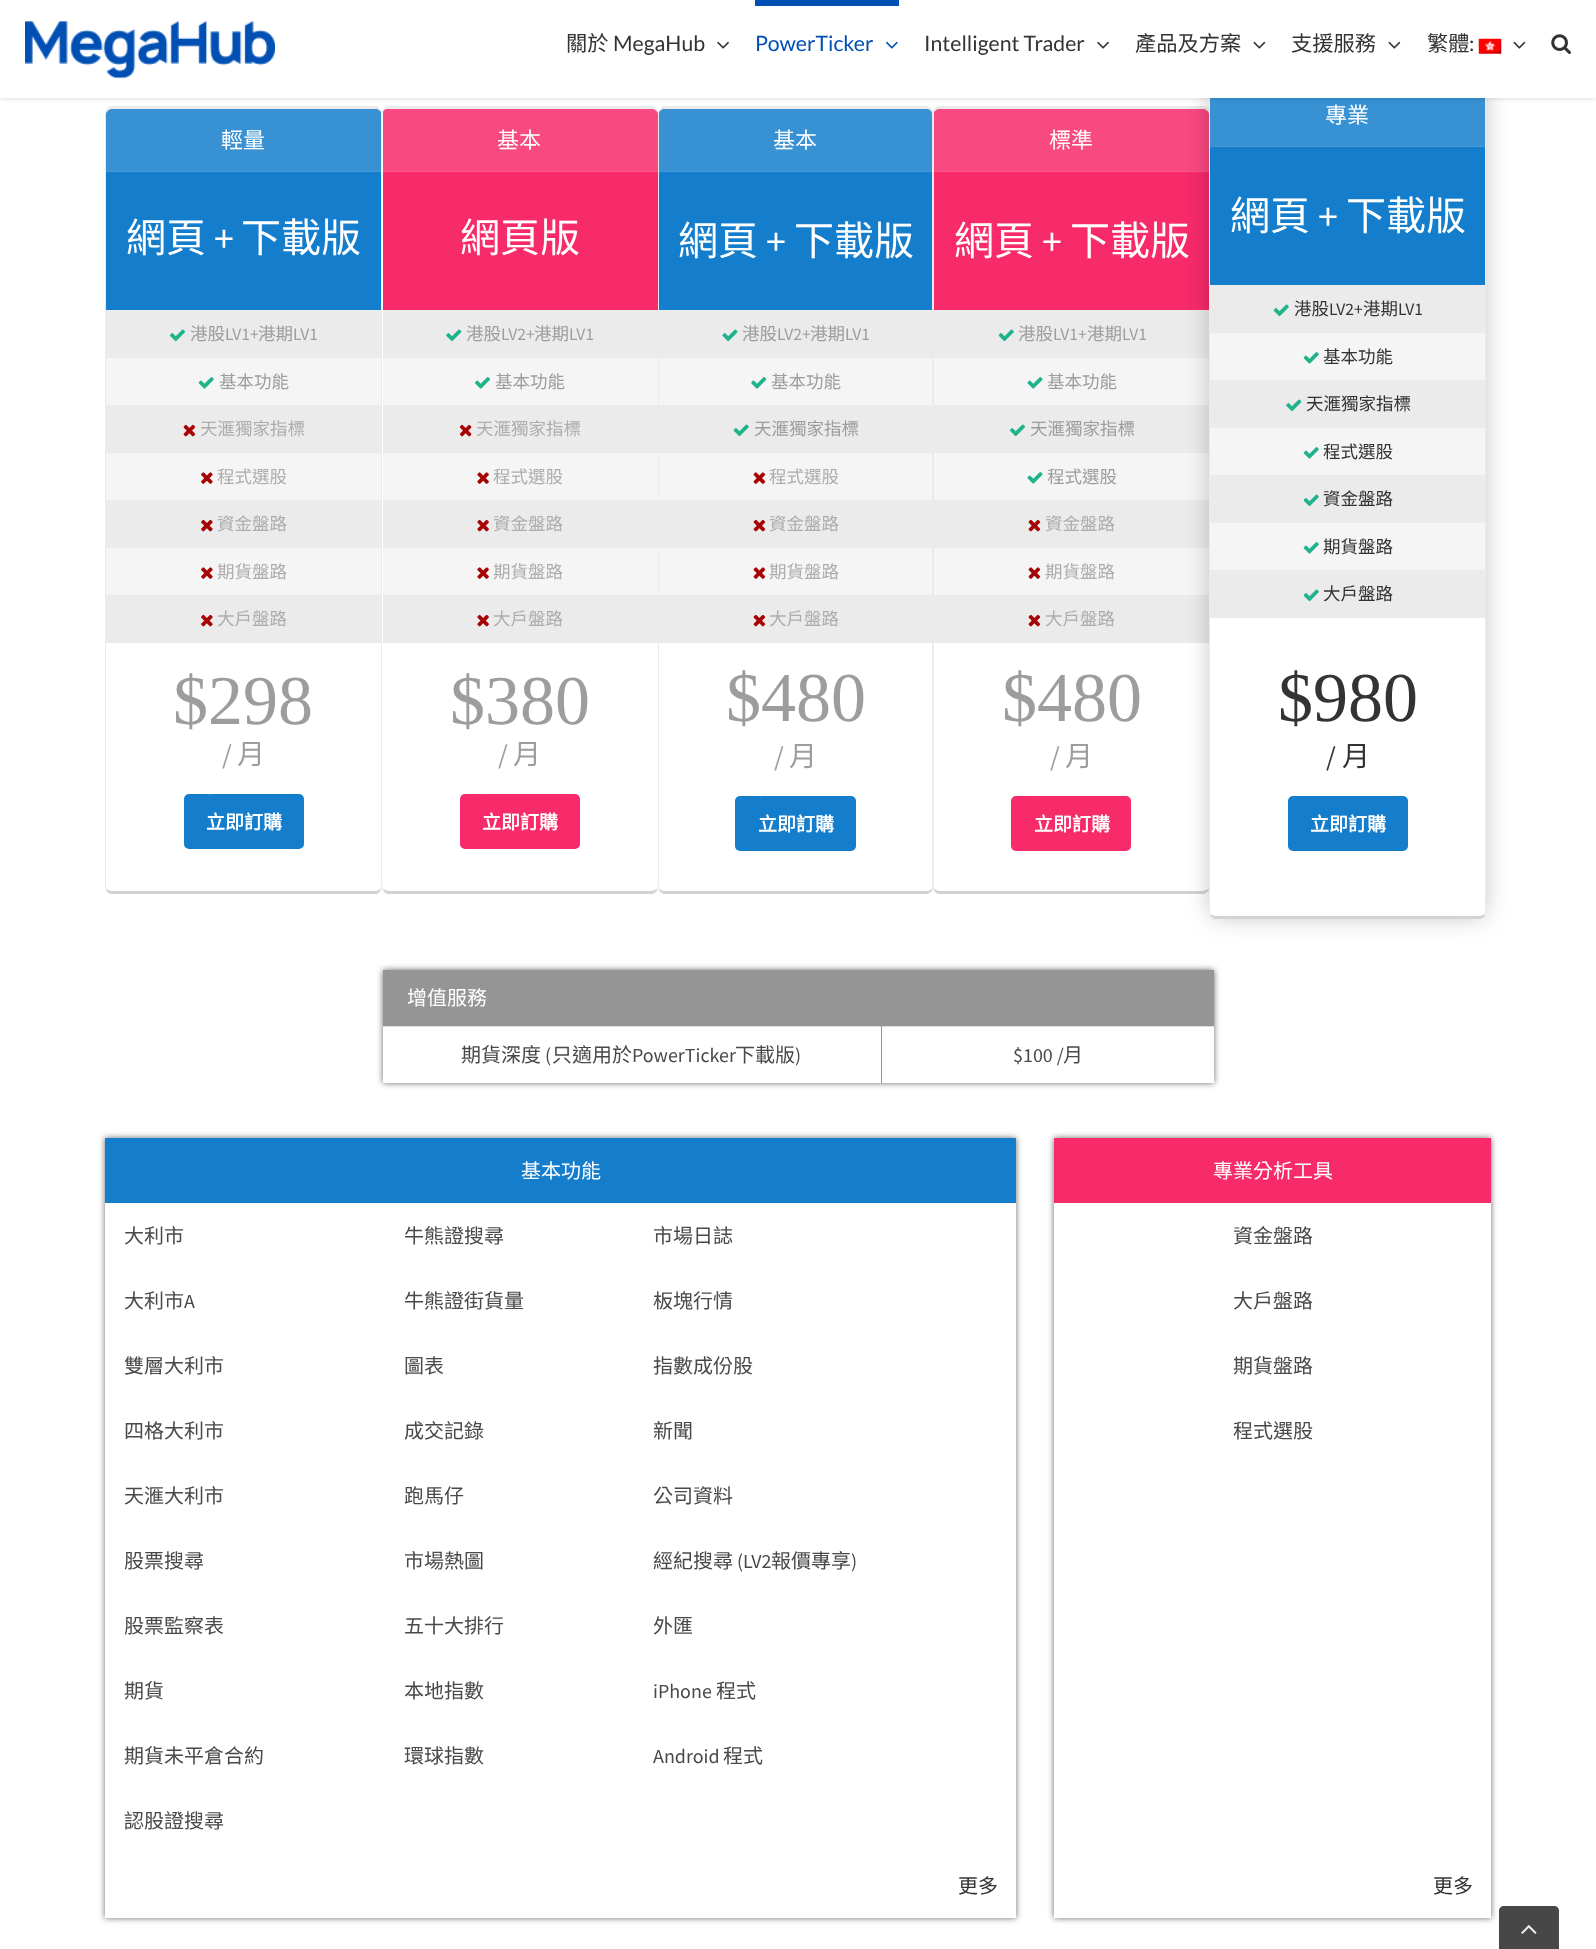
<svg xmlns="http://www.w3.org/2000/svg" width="1596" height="1949">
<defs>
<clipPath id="clip1"><path d="M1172 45h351v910h-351zm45 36h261c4.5 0 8 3.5 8 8v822c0 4.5-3.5 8-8 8h-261c-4.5 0-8-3.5-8-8v-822c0-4.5 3.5-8 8-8z" clip-rule="evenodd"/></clipPath>
<clipPath id="clip2"><path d="M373 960h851v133h-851zm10 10h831v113h-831z" clip-rule="evenodd"/></clipPath>
<clipPath id="clip3"><path d="M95 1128h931v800h-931zm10 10h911v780h-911z" clip-rule="evenodd"/></clipPath>
<clipPath id="clip4"><path d="M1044 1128h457v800h-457zm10 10h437v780h-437z" clip-rule="evenodd"/></clipPath>
</defs>
<rect width="100%" height="100%" fill="#fff"/>
<path d="M940 109c-2 0-4 1-5 2l-1-2c1-1 3-2 4-3h266c2 1 3 2 4 3v2c-2-1-4-2-6-2z" fill="#ebebeb"/>
<path d="M1210 886v-772c0-2-1-3-2-5v2l1 3v772l-1 3v2c1-2 2-3 2-5z" fill="#ebebeb"/>
<path d="M938 894c-1-1-3-2-4-3l1-2c1 1 3 2 5 2h262c2 0 4-1 6-2v2c-1 1-2 2-4 3z" fill="#d3d3d3"/>
<path d="M665 109c-2 0-4 1-5 2l-1-1c1-2 3-3 4-4h265c1 1 3 2 4 3l-1 2c-1-1-2-2-5-2z" fill="#ebebeb"/>
<path d="M934 888l-2 3l-1-2l1-3v-772l-1-3l1-2l2 3z" fill="#ebebeb"/>
<path d="M932 111l2-2l1 2l-1 3v772l1 3l-1 2l-2-2z" fill="#ebebeb"/>
<path d="M934 112c1-1 2-2 4-3h266c3 1 5 3 5 5v196h-275z" fill="#f72a6a"/>
<path d="M934 112c1-1 2-2 4-3h266c3 1 5 3 5 5v57h-275z" fill="#ffffff26"/>
<rect x="934" y="171" width="275" height="1" fill="#f95588"/>
<rect x="934" y="310" width="275" height="48" fill="#ebebeb"/>
<rect x="934" y="358" width="275" height="47" fill="#f5f5f5"/>
<rect x="934" y="405" width="275" height="48" fill="#ebebeb"/>
<rect x="934" y="453" width="275" height="47" fill="#f5f5f5"/>
<rect x="934" y="500" width="275" height="48" fill="#ebebeb"/>
<rect x="934" y="548" width="275" height="47" fill="#f5f5f5"/>
<rect x="934" y="595" width="275" height="48" fill="#ebebeb"/>
<g clip-path="url(#clip1)">
<rect x="1211" y="84" width="273" height="832" rx="5" fill="#00000040" filter="blur(12.5px)"/>
</g>
<path d="M1485 84l1 5v822l-1 5l-1-2l1-3v-822l-1-3z" fill="#ebebeb"/>
<path d="M1214 919c-1-1-3-2-4-3l1-2c1 1 3 2 5 2h263c2 0 4-1 5-2l1 2c-1 1-3 2-4 3z" fill="#d3d3d3"/>
<path d="M1210 916l-1-5v-822l1-5l1 2l-1 3v822l1 3z" fill="#ebebeb"/>
<path d="M1210 89v196h275v-196c0-2-2-4-4-5h-267c-2 1-4 3-4 5z" fill="#157ecc"/>
<path d="M1210 89v57h275v-57c0-2-2-4-4-5h-267c-2 1-4 3-4 5z" fill="#ffffff26"/>
<rect y="1" width="1596" height="98" fill="#0000001f" filter="blur(2px)"/>
<rect width="1596" height="98" fill="#fff"/>
<image x="25" y="21" width="250" height="58" href="media/1.png"/>
<text x="566" y="51" style="font-family:Noto Sans CJK TC;font-size:21.25px;fill:#333">關於</text>
<text x="613" y="51" style="font-family:Lato;font-size:21.25px;fill:#333">MegaHub</text>
<image x="717" y="41" width="12" height="8" href="media/2.png"/>
<rect x="755" width="144" height="6" fill="#0050b4"/>
<text x="755" y="51" style="font-family:Lato;font-size:21.25px;fill:#0050b4">PowerTicker</text>
<image x="886" y="41" width="12" height="8" href="media/3.png"/>
<text x="924" y="51" style="font-family:Lato;font-size:21.25px;fill:#333">Intelligent Trader</text>
<image x="1097" y="41" width="12" height="8" href="media/2.png"/>
<text x="1135" y="51" style="font-family:Noto Sans CJK TC;font-size:21.25px;fill:#333">產品及方案</text>
<image x="1253" y="41" width="13" height="8" href="media/4.png"/>
<text x="1291" y="51" style="font-family:Noto Sans CJK TC;font-size:21.25px;fill:#333">支援服務</text>
<image x="1388" y="41" width="13" height="8" href="media/4.png"/>
<text x="1427" y="51" style="font-family:Noto Sans CJK TC;font-size:21.25px;fill:#333">繁體</text>
<text x="1469" y="51" style="font-family:Lato;font-size:21.25px;fill:#333">:</text>
<image x="1478" y="38" width="24" height="16" href="media/5.png"/>
<image x="1513" y="41" width="13" height="8" href="media/4.png"/>
<image x="1551" y="34" width="20" height="20" href="media/6.png"/>
<path d="M112 109c-2 0-4 1-5 2l-1-2c1-1 3-2 4-3h267c1 1 3 2 4 4l-1 1c-1-1-3-2-5-2z" fill="#ebebeb"/>
<path d="M381 110l1 4v772l-1 4l-1-1l1-3v-772l-1-3z" fill="#ebebeb"/>
<path d="M110 894c-1-1-3-2-4-3l1-2c1 1 3 2 5 2h263c2 0 4-1 5-2l1 1c-1 2-3 3-4 4z" fill="#d3d3d3"/>
<path d="M105 114v772c0 2 1 3 1 5l1-2l-1-3v-772l1-3l-1-2c0 2-1 3-1 5z" fill="#ebebeb"/>
<path d="M106 310v-196c0-2 2-4 5-5h266c2 1 3 2 4 3v198z" fill="#157ecc"/>
<path d="M106 171v-57c0-2 2-4 5-5h266c2 1 3 2 4 3v59z" fill="#ffffff26"/>
<text x="221" y="148" style="font-family:Noto Sans CJK TC;font-size:22px;fill:#fff">輕量</text>
<rect x="106" y="171" width="275" height="1" fill="#4498d6"/>
<text x="126" y="252" style="font-family:Noto Sans CJK TC;font-size:40px;fill:#fff">網頁</text>
<text x="214" y="252" style="font-family:Source Sans Pro;font-size:40px;fill:#fff">+</text>
<text x="241" y="252" style="font-family:Noto Sans CJK TC;font-size:40px;fill:#fff">下載版</text>
<rect x="106" y="310" width="275" height="48" fill="#ebebeb"/>
<image x="170" y="329" width="15" height="13" href="media/7.png"/>
<text x="190" y="340" style="font-family:Noto Sans CJK TC;font-size:17.5px;fill:#9d9d9d">港股</text>
<text x="225" y="340" style="font-family:Source Sans Pro;font-size:17.5px;fill:#9d9d9d">LV1+</text>
<text x="258" y="340" style="font-family:Noto Sans CJK TC;font-size:17.5px;fill:#9d9d9d">港期</text>
<text x="293" y="340" style="font-family:Source Sans Pro;font-size:17.5px;fill:#9d9d9d">LV1</text>
<rect x="106" y="358" width="275" height="47" fill="#f5f5f5"/>
<image x="198" y="377" width="16" height="12" href="media/8.png"/>
<text x="219" y="388" style="font-family:Noto Sans CJK TC;font-size:17.5px;fill:#9d9d9d">基本功能</text>
<rect x="106" y="405" width="275" height="48" fill="#ebebeb"/>
<image x="183" y="424" width="13" height="13" href="media/9.png"/>
<text x="200" y="435" style="font-family:Noto Sans CJK TC;font-size:17.5px;fill:#adadad">天滙獨家指標</text>
<rect x="106" y="453" width="275" height="47" fill="#f5f5f5"/>
<image x="201" y="472" width="12" height="12" href="media/10.png"/>
<text x="217" y="483" style="font-family:Noto Sans CJK TC;font-size:17.5px;fill:#adadad">程式選股</text>
<rect x="106" y="500" width="275" height="48" fill="#ebebeb"/>
<image x="201" y="519" width="12" height="13" href="media/11.png"/>
<text x="217" y="530" style="font-family:Noto Sans CJK TC;font-size:17.5px;fill:#adadad">資金盤路</text>
<rect x="106" y="548" width="275" height="47" fill="#f5f5f5"/>
<image x="201" y="567" width="12" height="12" href="media/10.png"/>
<text x="217" y="578" style="font-family:Noto Sans CJK TC;font-size:17.5px;fill:#adadad">期貨盤路</text>
<rect x="106" y="595" width="275" height="48" fill="#ebebeb"/>
<image x="201" y="614" width="12" height="13" href="media/11.png"/>
<text x="217" y="625" style="font-family:Noto Sans CJK TC;font-size:17.5px;fill:#adadad">大戶盤路</text>
<text x="173" y="724" style="font-family:Liberation Serif;font-size:70px;fill:#9d9d9d">$298</text>
<text x="222" y="764" style="font-family:Source Sans Pro;font-size:28px;fill:#9d9d9d">/</text>
<text x="237" y="764" style="font-family:Noto Sans CJK TC;font-size:28px;fill:#9d9d9d">月</text>
<rect x="184" y="794" width="120" height="55" rx="5" fill="#157ecc"/>
<image x="208" y="794" width="2" height="2" href="media/12.png"/>
<text x="206" y="829" style="font-family:Noto Sans CJK TC;font-size:19px;font-weight:bold;fill:#fff">立即訂購</text>
<path d="M389 109c-2 0-4 1-5 2l-1-2c1-1 3-2 4-3h266c1 1 3 2 4 3l-1 2c-1-1-3-2-5-2z" fill="#ebebeb"/>
<path d="M659 888l-2 3l-1-2c1-1 2-2 2-3v-772c0-1-1-2-2-3l1-2l2 3z" fill="#ebebeb"/>
<path d="M387 894c-1-1-3-2-4-3l1-2c1 1 3 2 5 2h262c2 0 4-1 5-2l1 2c-1 1-3 2-4 3z" fill="#d3d3d3"/>
<path d="M381 112l2-3l1 2c-1 1-2 2-2 3v772c0 1 1 2 2 3l-1 2l-2-3z" fill="#ebebeb"/>
<path d="M383 112c1-2 2-3 4-3h266c3 1 5 3 5 5v196h-275z" fill="#f72a6a"/>
<path d="M383 112c1-2 2-3 4-3h266c3 1 5 3 5 5v57h-275z" fill="#ffffff26"/>
<text x="497" y="148" style="font-family:Noto Sans CJK TC;font-size:22px;fill:#fff">基本</text>
<rect x="383" y="171" width="275" height="1" fill="#f95588"/>
<text x="460" y="252" style="font-family:Noto Sans CJK TC;font-size:40px;fill:#fff">網頁版</text>
<rect x="383" y="310" width="275" height="48" fill="#ebebeb"/>
<image x="446" y="329" width="16" height="13" href="media/13.png"/>
<text x="466" y="340" style="font-family:Noto Sans CJK TC;font-size:17.5px;fill:#9d9d9d">港股</text>
<text x="501" y="340" style="font-family:Source Sans Pro;font-size:17.5px;fill:#9d9d9d">LV2+</text>
<text x="534" y="340" style="font-family:Noto Sans CJK TC;font-size:17.5px;fill:#9d9d9d">港期</text>
<text x="569" y="340" style="font-family:Source Sans Pro;font-size:17.5px;fill:#9d9d9d">LV1</text>
<rect x="383" y="358" width="275" height="47" fill="#f5f5f5"/>
<image x="475" y="377" width="15" height="12" href="media/14.png"/>
<text x="495" y="388" style="font-family:Noto Sans CJK TC;font-size:17.5px;fill:#9d9d9d">基本功能</text>
<rect x="383" y="405" width="275" height="48" fill="#ebebeb"/>
<image x="459" y="424" width="13" height="13" href="media/15.png"/>
<text x="476" y="435" style="font-family:Noto Sans CJK TC;font-size:17.5px;fill:#adadad">天滙獨家指標</text>
<rect x="383" y="453" width="275" height="47" fill="#f5f5f5"/>
<image x="477" y="472" width="12" height="12" href="media/16.png"/>
<text x="493" y="483" style="font-family:Noto Sans CJK TC;font-size:17.5px;fill:#adadad">程式選股</text>
<rect x="383" y="500" width="275" height="48" fill="#ebebeb"/>
<image x="477" y="519" width="12" height="13" href="media/17.png"/>
<text x="493" y="530" style="font-family:Noto Sans CJK TC;font-size:17.5px;fill:#adadad">資金盤路</text>
<rect x="383" y="548" width="275" height="47" fill="#f5f5f5"/>
<image x="477" y="567" width="12" height="12" href="media/16.png"/>
<text x="493" y="578" style="font-family:Noto Sans CJK TC;font-size:17.5px;fill:#adadad">期貨盤路</text>
<rect x="383" y="595" width="275" height="48" fill="#ebebeb"/>
<image x="477" y="614" width="12" height="13" href="media/17.png"/>
<text x="493" y="625" style="font-family:Noto Sans CJK TC;font-size:17.5px;fill:#adadad">大戶盤路</text>
<text x="450" y="724" style="font-family:Liberation Serif;font-size:70px;fill:#9d9d9d">$380</text>
<text x="498" y="764" style="font-family:Source Sans Pro;font-size:28px;fill:#9d9d9d">/</text>
<text x="513" y="764" style="font-family:Noto Sans CJK TC;font-size:28px;fill:#9d9d9d">月</text>
<rect x="460" y="794" width="120" height="55" rx="5" fill="#f72a6a"/>
<image x="485" y="794" width="2" height="2" href="media/18.png"/>
<text x="482" y="829" style="font-family:Noto Sans CJK TC;font-size:19px;font-weight:bold;fill:#fff">立即訂購</text>
<path d="M663 894c-1-1-3-2-4-4l1-1c1 1 3 2 5 2h261c3 0 4-1 5-2l1 2c-1 1-3 2-4 3z" fill="#d3d3d3"/>
<path d="M659 890l-1-4v-772l1-4l1 1l-1 3v772l1 3z" fill="#ebebeb"/>
<path d="M659 112c1-1 2-2 4-3h265c3 1 4 3 4 5v196h-273z" fill="#157ecc"/>
<path d="M659 112c1-1 2-2 4-3h265c3 1 4 3 4 5v57h-273z" fill="#ffffff26"/>
<text x="773" y="148" style="font-family:Noto Sans CJK TC;font-size:22px;fill:#fff">基本</text>
<rect x="659" y="171" width="273" height="1" fill="#4498d6"/>
<text x="678" y="255" style="font-family:Noto Sans CJK TC;font-size:40px;fill:#fff">網頁</text>
<text x="766" y="255" style="font-family:Source Sans Pro;font-size:40px;fill:#fff">+</text>
<text x="794" y="255" style="font-family:Noto Sans CJK TC;font-size:40px;fill:#fff">下載版</text>
<rect x="659" y="310" width="273" height="48" fill="#ebebeb"/>
<image x="722" y="329" width="16" height="13" href="media/19.png"/>
<text x="742" y="340" style="font-family:Noto Sans CJK TC;font-size:17.5px;fill:#9d9d9d">港股</text>
<text x="777" y="340" style="font-family:Source Sans Pro;font-size:17.5px;fill:#9d9d9d">LV2+</text>
<text x="810" y="340" style="font-family:Noto Sans CJK TC;font-size:17.5px;fill:#9d9d9d">港期</text>
<text x="845" y="340" style="font-family:Source Sans Pro;font-size:17.5px;fill:#9d9d9d">LV1</text>
<rect x="659" y="358" width="273" height="47" fill="#f5f5f5"/>
<image x="751" y="377" width="16" height="12" href="media/20.png"/>
<text x="771" y="388" style="font-family:Noto Sans CJK TC;font-size:17.5px;fill:#9d9d9d">基本功能</text>
<rect x="659" y="405" width="273" height="48" fill="#ebebeb"/>
<image x="733" y="424" width="16" height="13" href="media/21.png"/>
<text x="754" y="435" style="font-family:Noto Sans CJK TC;font-size:17.5px;fill:#9d9d9d">天滙獨家指標</text>
<rect x="659" y="453" width="273" height="47" fill="#f5f5f5"/>
<image x="753" y="472" width="13" height="12" href="media/22.png"/>
<text x="769" y="483" style="font-family:Noto Sans CJK TC;font-size:17.5px;fill:#adadad">程式選股</text>
<rect x="659" y="500" width="273" height="48" fill="#ebebeb"/>
<image x="753" y="519" width="13" height="13" href="media/9.png"/>
<text x="769" y="530" style="font-family:Noto Sans CJK TC;font-size:17.5px;fill:#adadad">資金盤路</text>
<rect x="659" y="548" width="273" height="47" fill="#f5f5f5"/>
<image x="753" y="567" width="13" height="12" href="media/22.png"/>
<text x="769" y="578" style="font-family:Noto Sans CJK TC;font-size:17.5px;fill:#adadad">期貨盤路</text>
<rect x="659" y="595" width="273" height="48" fill="#ebebeb"/>
<image x="753" y="614" width="13" height="13" href="media/9.png"/>
<text x="769" y="625" style="font-family:Noto Sans CJK TC;font-size:17.5px;fill:#adadad">大戶盤路</text>
<text x="726" y="721" style="font-family:Liberation Serif;font-size:70px;fill:#9d9d9d">$480</text>
<text x="774" y="766" style="font-family:Source Sans Pro;font-size:28px;fill:#9d9d9d">/</text>
<text x="789" y="766" style="font-family:Noto Sans CJK TC;font-size:28px;fill:#9d9d9d">月</text>
<rect x="735" y="796" width="121" height="55" rx="5" fill="#157ecc"/>
<image x="760" y="796" width="2" height="2" href="media/23.png"/>
<text x="758" y="831" style="font-family:Noto Sans CJK TC;font-size:19px;font-weight:bold;fill:#fff">立即訂購</text>
<text x="1049" y="148" style="font-family:Noto Sans CJK TC;font-size:22px;fill:#fff">標準</text>
<text x="954" y="255" style="font-family:Noto Sans CJK TC;font-size:40px;fill:#fff">網頁</text>
<text x="1042" y="255" style="font-family:Source Sans Pro;font-size:40px;fill:#fff">+</text>
<text x="1070" y="255" style="font-family:Noto Sans CJK TC;font-size:40px;fill:#fff">下載版</text>
<image x="998" y="329" width="16" height="13" href="media/21.png"/>
<text x="1018" y="340" style="font-family:Noto Sans CJK TC;font-size:17.5px;fill:#9d9d9d">港股</text>
<text x="1053" y="340" style="font-family:Source Sans Pro;font-size:17.5px;fill:#9d9d9d">LV1+</text>
<text x="1087" y="340" style="font-family:Noto Sans CJK TC;font-size:17.5px;fill:#9d9d9d">港期</text>
<text x="1122" y="340" style="font-family:Source Sans Pro;font-size:17.5px;fill:#9d9d9d">LV1</text>
<image x="1027" y="377" width="16" height="12" href="media/24.png"/>
<text x="1047" y="388" style="font-family:Noto Sans CJK TC;font-size:17.5px;fill:#9d9d9d">基本功能</text>
<image x="1010" y="424" width="15" height="13" href="media/7.png"/>
<text x="1030" y="435" style="font-family:Noto Sans CJK TC;font-size:17.5px;fill:#9d9d9d">天滙獨家指標</text>
<image x="1027" y="472" width="16" height="12" href="media/24.png"/>
<text x="1047" y="483" style="font-family:Noto Sans CJK TC;font-size:17.5px;fill:#9d9d9d">程式選股</text>
<image x="1028" y="519" width="13" height="13" href="media/9.png"/>
<text x="1045" y="530" style="font-family:Noto Sans CJK TC;font-size:17.5px;fill:#adadad">資金盤路</text>
<image x="1028" y="567" width="13" height="12" href="media/22.png"/>
<text x="1045" y="578" style="font-family:Noto Sans CJK TC;font-size:17.5px;fill:#adadad">期貨盤路</text>
<image x="1028" y="614" width="13" height="13" href="media/9.png"/>
<text x="1045" y="625" style="font-family:Noto Sans CJK TC;font-size:17.5px;fill:#adadad">大戶盤路</text>
<text x="1002" y="721" style="font-family:Liberation Serif;font-size:70px;fill:#9d9d9d">$480</text>
<text x="1050" y="766" style="font-family:Source Sans Pro;font-size:28px;fill:#9d9d9d">/</text>
<text x="1065" y="766" style="font-family:Noto Sans CJK TC;font-size:28px;fill:#9d9d9d">月</text>
<rect x="1011" y="796" width="120" height="55" rx="5" fill="#f72a6a"/>
<image x="1036" y="797" width="2" height="1" href="media/25.png"/>
<text x="1034" y="831" style="font-family:Noto Sans CJK TC;font-size:19px;font-weight:bold;fill:#fff">立即訂購</text>
<text x="1325" y="123" style="font-family:Noto Sans CJK TC;font-size:22px;fill:#fff">專業</text>
<rect x="1210" y="146" width="275" height="1" fill="#4498d6"/>
<text x="1230" y="230" style="font-family:Noto Sans CJK TC;font-size:40px;fill:#fff">網頁</text>
<text x="1318" y="230" style="font-family:Source Sans Pro;font-size:40px;fill:#fff">+</text>
<text x="1346" y="230" style="font-family:Noto Sans CJK TC;font-size:40px;fill:#fff">下載版</text>
<rect x="1210" y="285" width="275" height="48" fill="#ebebeb"/>
<image x="1273" y="304" width="16" height="13" href="media/21.png"/>
<text x="1294" y="315" style="font-family:Noto Sans CJK TC;font-size:17.5px;fill:#333">港股</text>
<text x="1329" y="315" style="font-family:Source Sans Pro;font-size:17.5px;fill:#333">LV2+</text>
<text x="1363" y="315" style="font-family:Noto Sans CJK TC;font-size:17.5px;fill:#333">港期</text>
<text x="1398" y="315" style="font-family:Source Sans Pro;font-size:17.5px;fill:#333">LV1</text>
<rect x="1210" y="333" width="275" height="47" fill="#f5f5f5"/>
<image x="1303" y="352" width="16" height="12" href="media/8.png"/>
<text x="1323" y="363" style="font-family:Noto Sans CJK TC;font-size:17.5px;fill:#333">基本功能</text>
<rect x="1210" y="380" width="275" height="48" fill="#ebebeb"/>
<image x="1286" y="399" width="16" height="13" href="media/13.png"/>
<text x="1306" y="410" style="font-family:Noto Sans CJK TC;font-size:17.5px;fill:#333">天滙獨家指標</text>
<rect x="1210" y="428" width="275" height="47" fill="#f5f5f5"/>
<image x="1303" y="447" width="16" height="12" href="media/8.png"/>
<text x="1323" y="458" style="font-family:Noto Sans CJK TC;font-size:17.5px;fill:#333">程式選股</text>
<rect x="1210" y="475" width="275" height="48" fill="#ebebeb"/>
<image x="1303" y="494" width="16" height="13" href="media/21.png"/>
<text x="1323" y="505" style="font-family:Noto Sans CJK TC;font-size:17.5px;fill:#333">資金盤路</text>
<rect x="1210" y="523" width="275" height="47" fill="#f5f5f5"/>
<image x="1303" y="542" width="16" height="12" href="media/8.png"/>
<text x="1323" y="553" style="font-family:Noto Sans CJK TC;font-size:17.5px;fill:#333">期貨盤路</text>
<rect x="1210" y="570" width="275" height="48" fill="#ebebeb"/>
<image x="1303" y="589" width="16" height="13" href="media/21.png"/>
<text x="1323" y="600" style="font-family:Noto Sans CJK TC;font-size:17.5px;fill:#333">大戶盤路</text>
<text x="1278" y="721" style="font-family:Liberation Serif;font-size:70px;fill:#333">$980</text>
<text x="1326" y="766" style="font-family:Source Sans Pro;font-size:28px;fill:#333">/</text>
<text x="1342" y="766" style="font-family:Noto Sans CJK TC;font-size:28px;fill:#333">月</text>
<rect x="1288" y="796" width="120" height="55" rx="5" fill="#157ecc"/>
<image x="1312" y="797" width="2" height="1" href="media/26.png"/>
<text x="1310" y="831" style="font-family:Noto Sans CJK TC;font-size:19px;font-weight:bold;fill:#fff">立即訂購</text>
<g clip-path="url(#clip2)">
<rect x="383" y="970" width="831" height="113" fill="#666" filter="blur(3px)"/>
</g>
<rect x="383" y="970" width="831" height="56" fill="#959595"/>
<text x="407" y="1005" style="font-family:Noto Sans CJK TC;font-size:20px;fill:#fff">增值服務</text>
<rect x="383" y="1026" width="831" height="1" fill="#e0dede"/>
<rect x="881" y="1026" width="1" height="57" fill="#959595"/>
<text x="461" y="1062" style="font-family:Noto Sans CJK TC;font-size:20px;fill:#494949">期貨深度</text>
<text x="545" y="1062" style="font-family:Source Sans Pro;font-size:20px;fill:#494949">(</text>
<text x="552" y="1062" style="font-family:Noto Sans CJK TC;font-size:20px;fill:#494949">只適用於</text>
<text x="632" y="1062" style="font-family:Source Sans Pro;font-size:20px;fill:#494949">PowerTicker</text>
<text x="735" y="1062" style="font-family:Noto Sans CJK TC;font-size:20px;fill:#494949">下載版</text>
<text x="795" y="1062" style="font-family:Source Sans Pro;font-size:20px;fill:#494949">)</text>
<text x="1013" y="1062" style="font-family:Source Sans Pro;font-size:20px;fill:#494949">$100 /</text>
<text x="1063" y="1062" style="font-family:Noto Sans CJK TC;font-size:20px;fill:#494949">月</text>
<g clip-path="url(#clip3)">
<rect x="105" y="1138" width="911" height="780" fill="#666" filter="blur(3px)"/>
</g>
<rect x="105" y="1138" width="911" height="65" fill="#157ecc"/>
<text x="521" y="1178" style="font-family:Noto Sans CJK TC;font-size:20px;fill:#fff">基本功能</text>
<text x="124" y="1243" style="font-family:Noto Sans CJK TC;font-size:20px;fill:#494949">大利市</text>
<text x="404" y="1243" style="font-family:Noto Sans CJK TC;font-size:20px;fill:#494949">牛熊證搜尋</text>
<text x="653" y="1243" style="font-family:Noto Sans CJK TC;font-size:20px;fill:#494949">市場日誌</text>
<text x="124" y="1308" style="font-family:Noto Sans CJK TC;font-size:20px;fill:#494949">大利市</text>
<text x="184" y="1308" style="font-family:Source Sans Pro;font-size:20px;fill:#494949">A</text>
<text x="404" y="1308" style="font-family:Noto Sans CJK TC;font-size:20px;fill:#494949">牛熊證街貨量</text>
<text x="653" y="1308" style="font-family:Noto Sans CJK TC;font-size:20px;fill:#494949">板塊行情</text>
<text x="124" y="1373" style="font-family:Noto Sans CJK TC;font-size:20px;fill:#494949">雙層大利市</text>
<text x="404" y="1373" style="font-family:Noto Sans CJK TC;font-size:20px;fill:#494949">圖表</text>
<text x="653" y="1373" style="font-family:Noto Sans CJK TC;font-size:20px;fill:#494949">指數成份股</text>
<text x="124" y="1438" style="font-family:Noto Sans CJK TC;font-size:20px;fill:#494949">四格大利市</text>
<text x="404" y="1438" style="font-family:Noto Sans CJK TC;font-size:20px;fill:#494949">成交記錄</text>
<text x="653" y="1438" style="font-family:Noto Sans CJK TC;font-size:20px;fill:#494949">新聞</text>
<text x="124" y="1503" style="font-family:Noto Sans CJK TC;font-size:20px;fill:#494949">天滙大利市</text>
<text x="404" y="1503" style="font-family:Noto Sans CJK TC;font-size:20px;fill:#494949">跑馬仔</text>
<text x="653" y="1503" style="font-family:Noto Sans CJK TC;font-size:20px;fill:#494949">公司資料</text>
<text x="124" y="1568" style="font-family:Noto Sans CJK TC;font-size:20px;fill:#494949">股票搜尋</text>
<text x="404" y="1568" style="font-family:Noto Sans CJK TC;font-size:20px;fill:#494949">市場熱圖</text>
<text x="653" y="1568" style="font-family:Noto Sans CJK TC;font-size:20px;fill:#494949">經紀搜尋</text>
<text x="737" y="1568" style="font-family:Source Sans Pro;font-size:20px;fill:#494949">(LV2</text>
<text x="771" y="1568" style="font-family:Noto Sans CJK TC;font-size:20px;fill:#494949">報價專享</text>
<text x="851" y="1568" style="font-family:Source Sans Pro;font-size:20px;fill:#494949">)</text>
<text x="124" y="1633" style="font-family:Noto Sans CJK TC;font-size:20px;fill:#494949">股票監察表</text>
<text x="404" y="1633" style="font-family:Noto Sans CJK TC;font-size:20px;fill:#494949">五十大排行</text>
<text x="653" y="1633" style="font-family:Noto Sans CJK TC;font-size:20px;fill:#494949">外匯</text>
<text x="124" y="1698" style="font-family:Noto Sans CJK TC;font-size:20px;fill:#494949">期貨</text>
<text x="404" y="1698" style="font-family:Noto Sans CJK TC;font-size:20px;fill:#494949">本地指數</text>
<text x="653" y="1698" style="font-family:Source Sans Pro;font-size:20px;fill:#494949">iPhone</text>
<text x="716" y="1698" style="font-family:Noto Sans CJK TC;font-size:20px;fill:#494949">程式</text>
<text x="124" y="1763" style="font-family:Noto Sans CJK TC;font-size:20px;fill:#494949">期貨未平倉合約</text>
<text x="404" y="1763" style="font-family:Noto Sans CJK TC;font-size:20px;fill:#494949">環球指數</text>
<text x="653" y="1763" style="font-family:Source Sans Pro;font-size:20px;fill:#494949">Android</text>
<text x="723" y="1763" style="font-family:Noto Sans CJK TC;font-size:20px;fill:#494949">程式</text>
<text x="124" y="1828" style="font-family:Noto Sans CJK TC;font-size:20px;fill:#494949">認股證搜尋</text>
<text x="958" y="1893" style="font-family:Noto Sans CJK TC;font-size:20px;fill:#333">更多</text>
<g clip-path="url(#clip4)">
<rect x="1054" y="1138" width="437" height="780" fill="#666" filter="blur(3px)"/>
</g>
<rect x="1054" y="1138" width="437" height="65" fill="#f72a6a"/>
<text x="1213" y="1178" style="font-family:Noto Sans CJK TC;font-size:20px;fill:#fff">專業分析工具</text>
<text x="1233" y="1243" style="font-family:Noto Sans CJK TC;font-size:20px;fill:#494949">資金盤路</text>
<text x="1233" y="1308" style="font-family:Noto Sans CJK TC;font-size:20px;fill:#494949">大戶盤路</text>
<text x="1233" y="1373" style="font-family:Noto Sans CJK TC;font-size:20px;fill:#494949">期貨盤路</text>
<text x="1233" y="1438" style="font-family:Noto Sans CJK TC;font-size:20px;fill:#494949">程式選股</text>
<text x="1433" y="1893" style="font-family:Noto Sans CJK TC;font-size:20px;fill:#333">更多</text>
<path d="M1504 1906h50c3 0 5 2 5 5v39h-60v-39c0-3 2-5 5-5z" fill="#474747"/>
<image x="1521" y="1925" width="16" height="9" href="media/27.png"/>
</svg>
